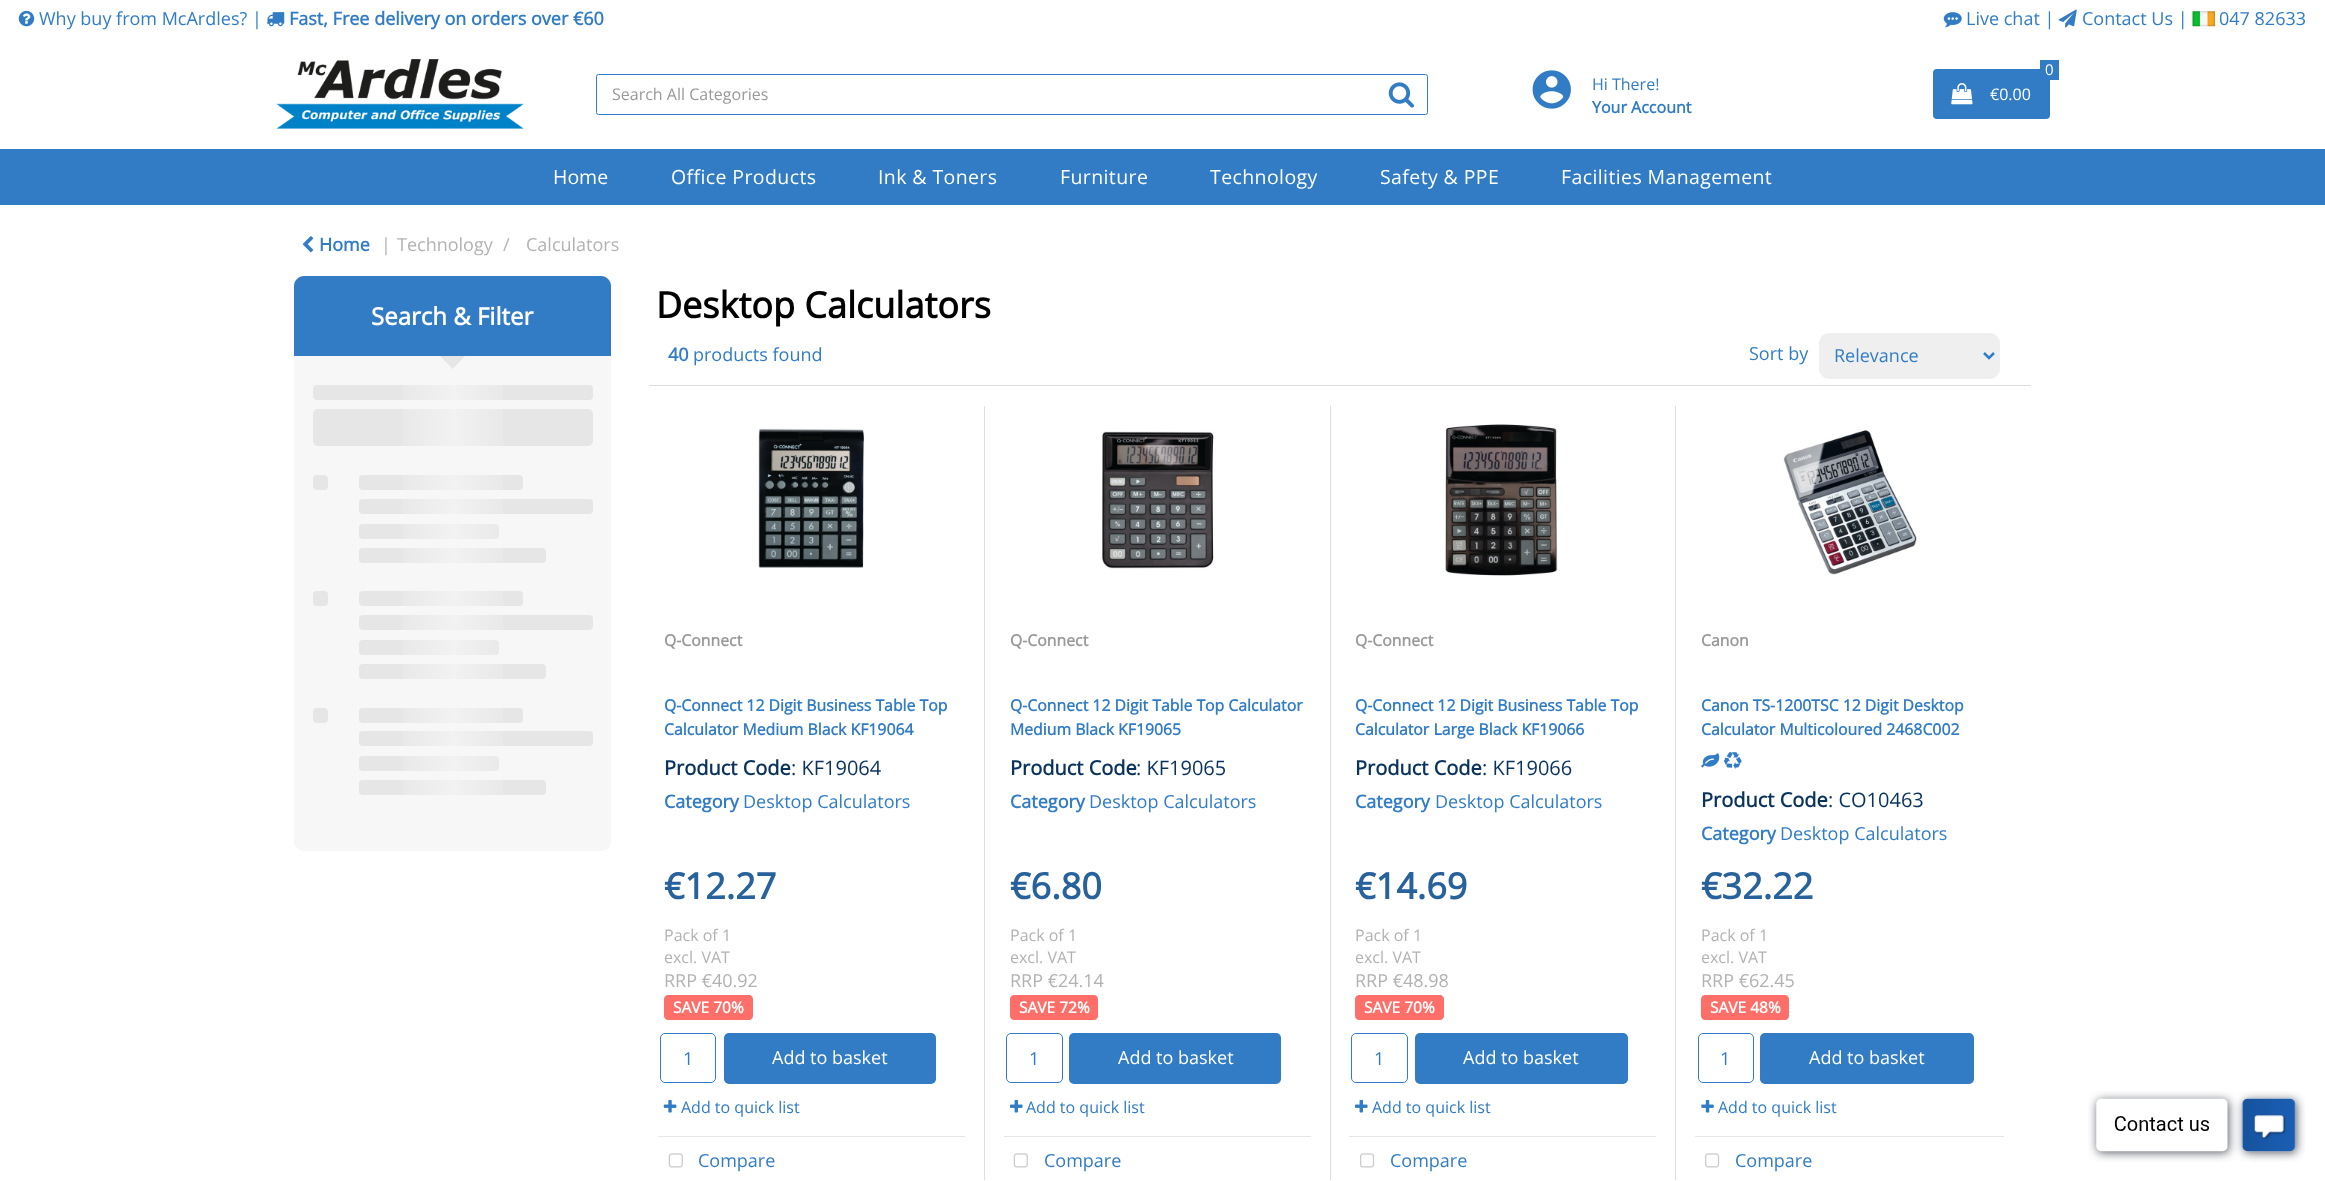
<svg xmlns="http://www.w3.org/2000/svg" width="2325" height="1181">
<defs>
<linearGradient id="g1" gradientUnits="userSpaceOnUse" x1="-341" y1="606" x2="1246" y2="606"><stop offset="0.46" stop-color="#f7f7f7" stop-opacity="0"/><stop offset="0.5" stop-color="#f7f7f7" stop-opacity="0.7"/><stop offset="0.54" stop-color="#f7f7f7" stop-opacity="0"/></linearGradient>
</defs>
<rect width="100%" height="100%" fill="#fff"/>
<image x="18" y="10" width="17" height="17" href="media/1.png"/>
<text x="39" y="25" style="font-family:Open Sans;font-size:18px;fill:#317cc5">Why buy from McArdles? |</text>
<image x="266" y="12" width="19" height="15" href="media/2.png"/>
<text x="289" y="25" style="font-family:Open Sans;font-size:18px;font-weight:bold;fill:#317cc5">Fast, Free delivery on orders over €60</text>
<image x="1943" y="12" width="19" height="16" href="media/3.png"/>
<text x="1966" y="25" style="font-family:Open Sans;font-size:18px;fill:#317cc5">Live chat |</text>
<image x="2058" y="9" width="19" height="19" href="media/4.png"/>
<text x="2082" y="25" style="font-family:Open Sans;font-size:18px;fill:#317cc5">Contact Us |</text>
<image x="2192" y="11" width="23" height="16" href="media/5.png"/>
<text x="2219" y="25" style="font-family:Open Sans;font-size:18px;fill:#317cc5">047 82633</text>
<image x="276" y="59" width="248" height="70" href="media/6.png"/>
<rect x="596.5" y="74.5" width="831" height="40" rx="2" fill="none" stroke="#317cc5"/>
<text x="612" y="100" style="font-family:Open Sans;font-size:16px;fill:#999">Search All Categories</text>
<image x="1388" y="82" width="26" height="26" href="media/7.png"/>
<image x="1532" y="70" width="39" height="39" href="media/8.png"/>
<text x="1592" y="90" style="font-family:Open Sans;font-size:16px;fill:#317cc5">Hi There!</text>
<text x="1592" y="113" style="font-family:Open Sans;font-size:16px;font-weight:bold;fill:#317cc5">Your Account</text>
<rect x="1933" y="69" width="117" height="50" rx="4" fill="#327cc5"/>
<rect x="2040" y="60" width="19" height="20" fill="#317cc5"/>
<text x="2045" y="75" style="font-family:Open Sans;font-size:15px;fill:#fff">0</text>
<image x="1951" y="83" width="22" height="22" href="media/9.png"/>
<text x="1990" y="100" style="font-family:Open Sans;font-size:16px;fill:#fff">€0.00</text>
<rect y="149" width="2325" height="56" fill="#317cc5"/>
<text x="553" y="184" style="font-family:Open Sans;font-size:19.5px;fill:#fff">Home</text>
<text x="671" y="184" style="font-family:Open Sans;font-size:19.5px;letter-spacing:0.4px;fill:#fff">Office Products</text>
<text x="878" y="184" style="font-family:Open Sans;font-size:19.5px;letter-spacing:0.4px;fill:#fff">Ink &amp; Toners</text>
<text x="1060" y="184" style="font-family:Open Sans;font-size:19.5px;letter-spacing:0.4px;fill:#fff">Furniture</text>
<text x="1210" y="184" style="font-family:Open Sans;font-size:19.5px;letter-spacing:0.4px;fill:#fff">Technology</text>
<text x="1380" y="184" style="font-family:Open Sans;font-size:19.5px;letter-spacing:0.4px;fill:#fff">Safety &amp; PPE</text>
<text x="1561" y="184" style="font-family:Open Sans;font-size:19.5px;letter-spacing:0.4px;fill:#fff">Facilities Management</text>
<image x="302" y="236" width="12" height="17" href="media/10.png"/>
<text x="319" y="251" style="font-family:Open Sans;font-size:18px;font-weight:bold;fill:#317cc5">Home</text>
<text x="381" y="251" style="font-family:Open Sans;font-size:18px;fill:#b2b2b2">|</text>
<text x="397" y="251" style="font-family:Open Sans;font-size:18px;fill:#b2b2b2">Technology</text>
<text x="503" y="251" style="font-family:Open Sans;font-size:18px;fill:#b2b2b2">/</text>
<text x="526" y="251" style="font-family:Open Sans;font-size:18px;fill:#b2b2b2">Calculators</text>
<path d="M294 286h317v555c0 5.5-4.5 10-10 10h-297c-5.5 0-10-4.5-10-10z" fill="#f7f7f7"/>
<path d="M304 276h297c5.5 0 10 4.5 10 10v70h-317v-70c0-5.5 4.5-10 10-10z" fill="#327cc5"/>
<text x="371" y="325" style="font-family:Open Sans;font-size:24px;font-weight:bold;fill:#fff">Search &amp; Filter</text>
<path d="M440 356h25l-12.5 13z" fill="#e6e6e6"/>
<rect x="313" y="385" width="280" height="15" rx="4" fill="#e6e6e6"/>
<rect x="313" y="409" width="280" height="37" rx="5" fill="#e6e6e6"/>
<rect x="359" y="475" width="164" height="15" rx="4" fill="#e6e6e6"/>
<rect x="313" y="475" width="15" height="15" rx="4" fill="#e6e6e6"/>
<rect x="359" y="499" width="234" height="15" rx="4" fill="#e6e6e6"/>
<rect x="359" y="524" width="140" height="15" rx="4" fill="#e6e6e6"/>
<rect x="359" y="548" width="187" height="15" rx="4" fill="#e6e6e6"/>
<rect x="359" y="591" width="164" height="15" rx="4" fill="#e6e6e6"/>
<rect x="313" y="591" width="15" height="15" rx="4" fill="#e6e6e6"/>
<rect x="359" y="615" width="234" height="15" rx="4" fill="#e6e6e6"/>
<rect x="359" y="640" width="140" height="15" rx="4" fill="#e6e6e6"/>
<rect x="359" y="664" width="187" height="15" rx="4" fill="#e6e6e6"/>
<rect x="359" y="708" width="164" height="15" rx="4" fill="#e6e6e6"/>
<rect x="313" y="708" width="15" height="15" rx="4" fill="#e6e6e6"/>
<rect x="359" y="731" width="234" height="15" rx="4" fill="#e6e6e6"/>
<rect x="359" y="756" width="140" height="15" rx="4" fill="#e6e6e6"/>
<rect x="359" y="780" width="187" height="15" rx="4" fill="#e6e6e6"/>
<rect x="402" y="385" width="101" height="410" fill="url(#g1)"/>
<text x="656" y="318" style="font-family:Open Sans;font-size:36px;font-weight:bold;fill:#000">Desktop Calculators</text>
<text x="668" y="361" style="font-family:Open Sans;font-size:18px;font-weight:bold;fill:#317cc5">40</text>
<text x="693" y="361" style="font-family:Open Sans;font-size:18px;fill:#317cc5">products found</text>
<text x="1749" y="360" style="font-family:Open Sans;font-size:18px;fill:#317cc5">Sort by</text>
<rect x="1819.5" y="333.5" width="180" height="45" rx="9.5" fill="#efefef" stroke="#efefef"/>
<path d="M1984 353l5 5l5-5" fill="none" stroke="#317cc5" stroke-width="2.5"/>
<text x="1834" y="362" style="font-family:Open Sans;font-size:18px;fill:#317cc5">Relevance</text>
<rect x="649" y="385" width="1382" height="1" fill="#ddd"/>
<rect x="984" y="406" width="1" height="774" fill="#ddd"/>
<image x="758" y="428" width="107" height="140" href="media/11.png"/>
<text x="664" y="646" style="font-family:Open Sans;font-size:15.8px;font-weight:bold;fill:#999">Q-Connect</text>
<text x="664" y="711" style="font-family:Open Sans;font-size:15.8px;font-weight:bold;fill:#317cc5">Q-Connect 12 Digit Business Table Top</text>
<text x="664" y="735" style="font-family:Open Sans;font-size:15.8px;font-weight:bold;fill:#317cc5">Calculator Medium Black KF19064</text>
<text x="664" y="775" style="font-family:Open Sans;font-size:20px;font-weight:bold;fill:#09335d">Product Code</text>
<text x="791" y="775" style="font-family:Open Sans;font-size:20px;fill:#09335d">: KF19064</text>
<text x="664" y="808" style="font-family:Open Sans;font-size:18px;font-weight:bold;fill:#317cc5">Category</text>
<text x="743" y="808" style="font-family:Open Sans;font-size:18px;fill:#317cc5">Desktop Calculators</text>
<text x="664" y="899" style="font-family:Open Sans;font-size:36px;font-weight:bold;fill:#27629c">€12.27</text>
<text x="664" y="941" style="font-family:Open Sans;font-size:16px;fill:#b2b2b2">Pack of 1</text>
<text x="664" y="963" style="font-family:Open Sans;font-size:16px;fill:#b2b2b2">excl. VAT</text>
<text x="664" y="987" style="font-family:Open Sans;font-size:18px;fill:#b2b2b2">RRP €40.92</text>
<path d="M668 995h45v25h-45c-2 0-4-2-4-4v-17c0-2 2-4 4-4z" fill="#ff6f69"/>
<rect x="713" y="995" width="17" height="25" fill="#ff6f69"/>
<path d="M730 995h19c2 0 4 2 4 4v17c0 2-2 4-4 4h-19z" fill="#ff6f69"/>
<text x="673" y="1013" style="font-family:Open Sans;font-size:15.5px;font-weight:bold;fill:#fff">SAVE 70%</text>
<rect x="660.5" y="1033.5" width="55" height="49" rx="4.5" fill="none" stroke="#317cc5"/>
<text x="683" y="1065" style="font-family:Open Sans;font-size:18px;fill:#317cc5">1</text>
<rect x="724" y="1033" width="212" height="51" rx="5" fill="#317cc5"/>
<text x="772" y="1064" style="font-family:Open Sans;font-size:18px;fill:#fff">Add to basket</text>
<image x="663" y="1099" width="14" height="14" href="media/12.png"/>
<text x="681" y="1113" style="font-family:Open Sans;font-size:16px;fill:#317cc5">Add to quick list</text>
<rect x="658" y="1136" width="307" height="1" fill="#e6e6e6"/>
<image x="668" y="1153" width="15" height="15" href="media/13.png"/>
<text x="698" y="1167" style="font-family:Open Sans;font-size:18px;fill:#317cc5">Compare</text>
<rect x="1330" y="406" width="1" height="774" fill="#ddd"/>
<image x="1102" y="431" width="112" height="138" href="media/14.png"/>
<text x="1010" y="646" style="font-family:Open Sans;font-size:15.8px;font-weight:bold;fill:#999">Q-Connect</text>
<text x="1010" y="711" style="font-family:Open Sans;font-size:15.8px;font-weight:bold;fill:#317cc5">Q-Connect 12 Digit Table Top Calculator</text>
<text x="1010" y="735" style="font-family:Open Sans;font-size:15.8px;font-weight:bold;fill:#317cc5">Medium Black KF19065</text>
<text x="1010" y="775" style="font-family:Open Sans;font-size:20px;font-weight:bold;fill:#09335d">Product Code</text>
<text x="1136" y="775" style="font-family:Open Sans;font-size:20px;fill:#09335d">: KF19065</text>
<text x="1010" y="808" style="font-family:Open Sans;font-size:18px;font-weight:bold;fill:#317cc5">Category</text>
<text x="1089" y="808" style="font-family:Open Sans;font-size:18px;fill:#317cc5">Desktop Calculators</text>
<text x="1010" y="899" style="font-family:Open Sans;font-size:36px;font-weight:bold;fill:#27629c">€6.80</text>
<text x="1010" y="941" style="font-family:Open Sans;font-size:16px;fill:#b2b2b2">Pack of 1</text>
<text x="1010" y="963" style="font-family:Open Sans;font-size:16px;fill:#b2b2b2">excl. VAT</text>
<text x="1010" y="987" style="font-family:Open Sans;font-size:18px;fill:#b2b2b2">RRP €24.14</text>
<path d="M1014 995h45v25h-45c-2 0-4-2-4-4v-17c0-2 2-4 4-4z" fill="#ff6f69"/>
<rect x="1059" y="995" width="17" height="25" fill="#ff6f69"/>
<path d="M1076 995h18c2 0 4 2 4 4v17c0 2-2 4-4 4h-18z" fill="#ff6f69"/>
<text x="1019" y="1013" style="font-family:Open Sans;font-size:15.5px;font-weight:bold;fill:#fff">SAVE 72%</text>
<rect x="1006.5" y="1033.5" width="56" height="49" rx="4.5" fill="none" stroke="#317cc5"/>
<text x="1029" y="1065" style="font-family:Open Sans;font-size:18px;fill:#317cc5">1</text>
<rect x="1069" y="1033" width="212" height="51" rx="5" fill="#317cc5"/>
<text x="1118" y="1064" style="font-family:Open Sans;font-size:18px;fill:#fff">Add to basket</text>
<image x="1010" y="1099" width="13" height="14" href="media/15.png"/>
<text x="1026" y="1113" style="font-family:Open Sans;font-size:16px;fill:#317cc5">Add to quick list</text>
<rect x="1004" y="1136" width="307" height="1" fill="#e6e6e6"/>
<image x="1013" y="1153" width="15" height="15" href="media/13.png"/>
<text x="1044" y="1167" style="font-family:Open Sans;font-size:18px;fill:#317cc5">Compare</text>
<rect x="1675" y="406" width="1" height="774" fill="#ddd"/>
<image x="1445" y="424" width="113" height="152" href="media/16.png"/>
<text x="1355" y="646" style="font-family:Open Sans;font-size:15.8px;font-weight:bold;fill:#999">Q-Connect</text>
<text x="1355" y="711" style="font-family:Open Sans;font-size:15.8px;font-weight:bold;fill:#317cc5">Q-Connect 12 Digit Business Table Top</text>
<text x="1355" y="735" style="font-family:Open Sans;font-size:15.8px;font-weight:bold;fill:#317cc5">Calculator Large Black KF19066</text>
<text x="1355" y="775" style="font-family:Open Sans;font-size:20px;font-weight:bold;fill:#09335d">Product Code</text>
<text x="1482" y="775" style="font-family:Open Sans;font-size:20px;fill:#09335d">: KF19066</text>
<text x="1355" y="808" style="font-family:Open Sans;font-size:18px;font-weight:bold;fill:#317cc5">Category</text>
<text x="1435" y="808" style="font-family:Open Sans;font-size:18px;fill:#317cc5">Desktop Calculators</text>
<text x="1355" y="899" style="font-family:Open Sans;font-size:36px;font-weight:bold;fill:#27629c">€14.69</text>
<text x="1355" y="941" style="font-family:Open Sans;font-size:16px;fill:#b2b2b2">Pack of 1</text>
<text x="1355" y="963" style="font-family:Open Sans;font-size:16px;fill:#b2b2b2">excl. VAT</text>
<text x="1355" y="987" style="font-family:Open Sans;font-size:18px;fill:#b2b2b2">RRP €48.98</text>
<path d="M1359 995h45v25h-45c-2 0-4-2-4-4v-17c0-2 2-4 4-4z" fill="#ff6f69"/>
<rect x="1404" y="995" width="17" height="25" fill="#ff6f69"/>
<path d="M1421 995h19c2 0 4 2 4 4v17c0 2-2 4-4 4h-19z" fill="#ff6f69"/>
<text x="1364" y="1013" style="font-family:Open Sans;font-size:15.5px;font-weight:bold;fill:#fff">SAVE 70%</text>
<rect x="1351.5" y="1033.5" width="56" height="49" rx="4.5" fill="none" stroke="#317cc5"/>
<text x="1374" y="1065" style="font-family:Open Sans;font-size:18px;fill:#317cc5">1</text>
<rect x="1415" y="1033" width="213" height="51" rx="5" fill="#317cc5"/>
<text x="1463" y="1064" style="font-family:Open Sans;font-size:18px;fill:#fff">Add to basket</text>
<image x="1355" y="1099" width="13" height="14" href="media/15.png"/>
<text x="1372" y="1113" style="font-family:Open Sans;font-size:16px;fill:#317cc5">Add to quick list</text>
<rect x="1349" y="1136" width="307" height="1" fill="#e6e6e6"/>
<image x="1360" y="1153" width="15" height="15" href="media/17.png"/>
<text x="1390" y="1167" style="font-family:Open Sans;font-size:18px;fill:#317cc5">Compare</text>
<image x="1783" y="430" width="134" height="145" href="media/18.png"/>
<text x="1701" y="646" style="font-family:Open Sans;font-size:15.8px;font-weight:bold;fill:#999">Canon</text>
<text x="1701" y="711" style="font-family:Open Sans;font-size:15.8px;font-weight:bold;fill:#317cc5">Canon TS-1200TSC 12 Digit Desktop</text>
<text x="1701" y="735" style="font-family:Open Sans;font-size:15.8px;font-weight:bold;fill:#317cc5">Calculator Multicoloured 2468C002</text>
<image x="1701" y="753" width="19" height="15" href="media/19.png"/>
<image x="1724" y="752" width="18" height="17" href="media/20.png"/>
<text x="1701" y="807" style="font-family:Open Sans;font-size:20px;font-weight:bold;fill:#09335d">Product Code</text>
<text x="1828" y="807" style="font-family:Open Sans;font-size:20px;fill:#09335d">: CO10463</text>
<text x="1701" y="840" style="font-family:Open Sans;font-size:18px;font-weight:bold;fill:#317cc5">Category</text>
<text x="1780" y="840" style="font-family:Open Sans;font-size:18px;fill:#317cc5">Desktop Calculators</text>
<text x="1701" y="899" style="font-family:Open Sans;font-size:36px;font-weight:bold;fill:#27629c">€32.22</text>
<text x="1701" y="941" style="font-family:Open Sans;font-size:16px;fill:#b2b2b2">Pack of 1</text>
<text x="1701" y="963" style="font-family:Open Sans;font-size:16px;fill:#b2b2b2">excl. VAT</text>
<text x="1701" y="987" style="font-family:Open Sans;font-size:18px;fill:#b2b2b2">RRP €62.45</text>
<path d="M1705 995h45v25h-45c-2 0-4-2-4-4v-17c0-2 2-4 4-4z" fill="#ff6f69"/>
<rect x="1750" y="995" width="18" height="25" fill="#ff6f69"/>
<path d="M1768 995h17c2 0 4 2 4 4v17c0 2-2 4-4 4h-17z" fill="#ff6f69"/>
<text x="1710" y="1013" style="font-family:Open Sans;font-size:15.5px;font-weight:bold;fill:#fff">SAVE 48%</text>
<rect x="1698.5" y="1033.5" width="55" height="49" rx="4.5" fill="none" stroke="#317cc5"/>
<text x="1720" y="1065" style="font-family:Open Sans;font-size:18px;fill:#317cc5">1</text>
<rect x="1760" y="1033" width="214" height="51" rx="5" fill="#317cc5"/>
<text x="1809" y="1064" style="font-family:Open Sans;font-size:18px;fill:#fff">Add to basket</text>
<image x="1701" y="1099" width="13" height="14" href="media/21.png"/>
<text x="1718" y="1113" style="font-family:Open Sans;font-size:16px;fill:#317cc5">Add to quick list</text>
<rect x="1695" y="1136" width="309" height="1" fill="#e6e6e6"/>
<image x="1705" y="1153" width="15" height="15" href="media/17.png"/>
<text x="1735" y="1167" style="font-family:Open Sans;font-size:18px;fill:#317cc5">Compare</text>
<image x="2088" y="1091" width="217" height="71" href="media/22.png"/>
</svg>
